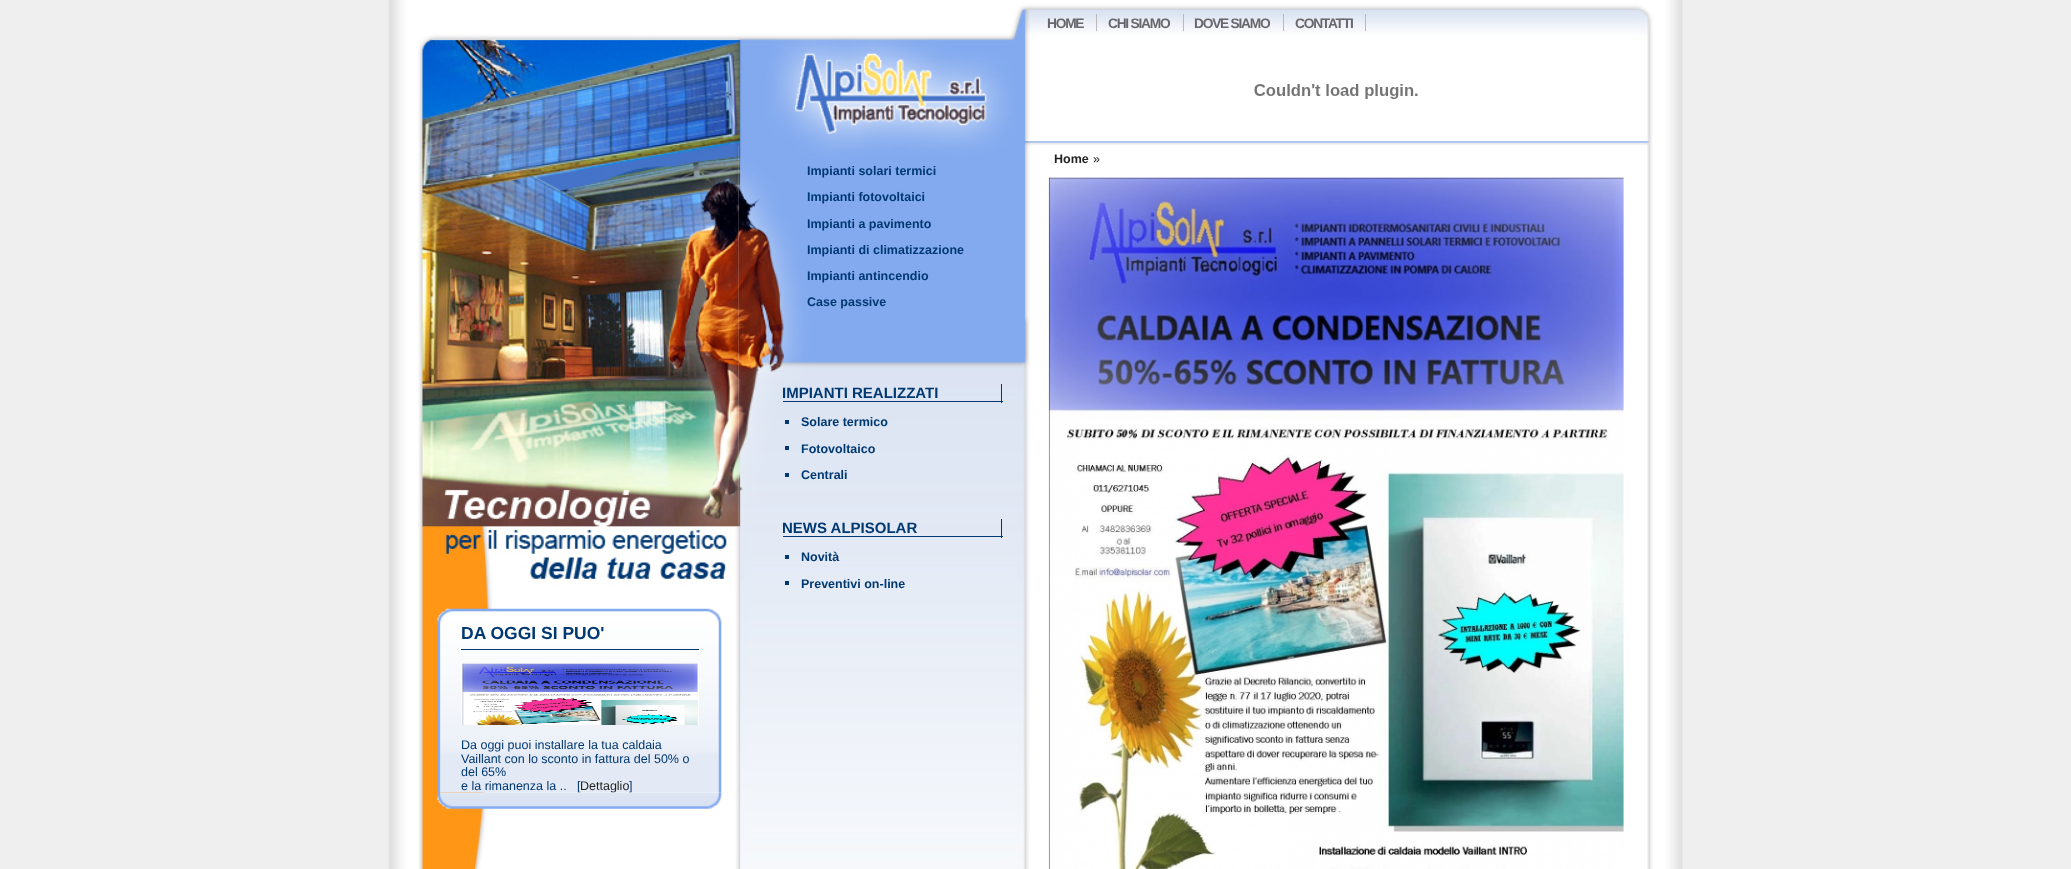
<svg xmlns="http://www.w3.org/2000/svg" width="2071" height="869">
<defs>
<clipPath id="clip1"><rect x="461" y="663" width="238" height="62"/></clipPath>
</defs>
<rect width="100%" height="100%" fill="#efefef"/>
<image x="388" y="0" width="1295" height="869" href="media/1.png"/>
<image x="418" y="145" width="1235" height="724" href="media/2.png"/>
<image x="418" y="0" width="1235" height="145" href="media/3.png"/>
<rect x="1096" y="14" width="1" height="17" fill="#bbb"/>
<text x="1047" y="28" style="font-family:Liberation Sans;font-size:13.75px;font-weight:bold;letter-spacing:-1.25px;fill:#68676b">HOME</text>
<rect x="1183" y="14" width="1" height="17" fill="#bbb"/>
<text x="1108" y="28" style="font-family:Liberation Sans;font-size:13.75px;font-weight:bold;letter-spacing:-1.25px;fill:#68676b">CHI SIAMO</text>
<rect x="1283" y="14" width="1" height="17" fill="#bbb"/>
<text x="1194" y="28" style="font-family:Liberation Sans;font-size:13.75px;font-weight:bold;letter-spacing:-1.25px;fill:#68676b">DOVE SIAMO</text>
<rect x="1365" y="14" width="1" height="17" fill="#bbb"/>
<text x="1295" y="28" style="font-family:Liberation Sans;font-size:13.75px;font-weight:bold;letter-spacing:-1.25px;fill:#68676b">CONTATTI</text>
<image x="1254" y="84" width="164" height="15" href="media/4.png"/>
<text x="1054" y="163" style="font-family:Liberation Sans;font-size:12.5px;font-weight:bold;fill:#222">Home</text>
<text x="1093" y="163" style="font-family:Liberation Sans;font-size:12.5px;fill:#222">»</text>
<image x="1048" y="177" width="576" height="692" href="media/5.png"/>
<image x="738" y="145" width="293" height="724" href="media/6.png"/>
<text x="807" y="175" style="font-family:Liberation Sans;font-size:12.5px;font-weight:bold;fill:#003872">Impianti solari termici</text>
<text x="807" y="201" style="font-family:Liberation Sans;font-size:12.5px;font-weight:bold;fill:#003872">Impianti fotovoltaici</text>
<text x="807" y="228" style="font-family:Liberation Sans;font-size:12.5px;font-weight:bold;fill:#003872">Impianti a pavimento</text>
<text x="807" y="254" style="font-family:Liberation Sans;font-size:12.5px;font-weight:bold;fill:#003872">Impianti di climatizzazione</text>
<text x="807" y="280" style="font-family:Liberation Sans;font-size:12.5px;font-weight:bold;fill:#003872">Impianti antincendio</text>
<text x="807" y="306" style="font-family:Liberation Sans;font-size:12.5px;font-weight:bold;fill:#003872">Case passive</text>
<rect x="1001" y="384" width="1" height="19" fill="#003872"/>
<rect x="783" y="401" width="220" height="1" fill="#003872"/>
<text x="782" y="398" style="font-family:Liberation Sans;font-size:15px;font-weight:bold;fill:#003872">IMPIANTI REALIZZATI</text>
<rect x="785" y="420" width="4" height="4" fill="#003872"/>
<text x="801" y="426" style="font-family:Liberation Sans;font-size:12.5px;font-weight:bold;fill:#003872">Solare termico</text>
<rect x="785" y="446" width="4" height="4" fill="#003872"/>
<text x="801" y="453" style="font-family:Liberation Sans;font-size:12.5px;font-weight:bold;fill:#003872">Fotovoltaico</text>
<rect x="785" y="473" width="4" height="4" fill="#003872"/>
<text x="801" y="479" style="font-family:Liberation Sans;font-size:12.5px;font-weight:bold;fill:#003872">Centrali</text>
<rect x="1001" y="519" width="1" height="19" fill="#003872"/>
<rect x="783" y="536" width="220" height="1" fill="#003872"/>
<text x="782" y="533" style="font-family:Liberation Sans;font-size:15px;font-weight:bold;fill:#003872">NEWS ALPISOLAR</text>
<rect x="785" y="555" width="4" height="4" fill="#003872"/>
<text x="801" y="561" style="font-family:Liberation Sans;font-size:12.5px;font-weight:bold;fill:#003872">Novità</text>
<rect x="785" y="581" width="4" height="4" fill="#003872"/>
<text x="801" y="588" style="font-family:Liberation Sans;font-size:12.5px;font-weight:bold;fill:#003872">Preventivi on-line</text>
<image x="422" y="145" width="317" height="724" href="media/7.png"/>
<image x="437" y="608" width="285" height="185" href="media/8.png"/>
<rect x="461" y="649" width="238" height="1" fill="#003873"/>
<text x="461" y="639" style="font-family:Liberation Sans;font-size:17.5px;font-weight:bold;fill:#003872">DA OGGI SI PUO'</text>
<text x="461" y="749" style="font-family:Liberation Sans;font-size:12.5px;fill:#003872">Da oggi puoi installare la tua caldaia</text>
<text x="461" y="763" style="font-family:Liberation Sans;font-size:12.5px;fill:#003872">Vaillant con lo sconto in fattura del 50% o</text>
<g clip-path="url(#clip1)">
<rect x="461.5" y="663.5" width="237" height="101" fill="none" stroke="#fff"/>
</g>
<image x="462" y="663" width="236" height="62" href="media/9.png"/>
<text x="461" y="776" style="font-family:Liberation Sans;font-size:12.5px;fill:#003872">del 65%</text>
<text x="461" y="790" style="font-family:Liberation Sans;font-size:12.5px;fill:#003872" xml:space="preserve">e la rimanenza la ..   [</text>
<text x="580" y="790" style="font-family:Liberation Sans;font-size:12.5px;fill:#222">Dettaglio</text>
<text x="629" y="790" style="font-family:Liberation Sans;font-size:12.5px;fill:#003872">]</text>
<image x="437" y="792" width="285" height="17" href="media/10.png"/>
</svg>
